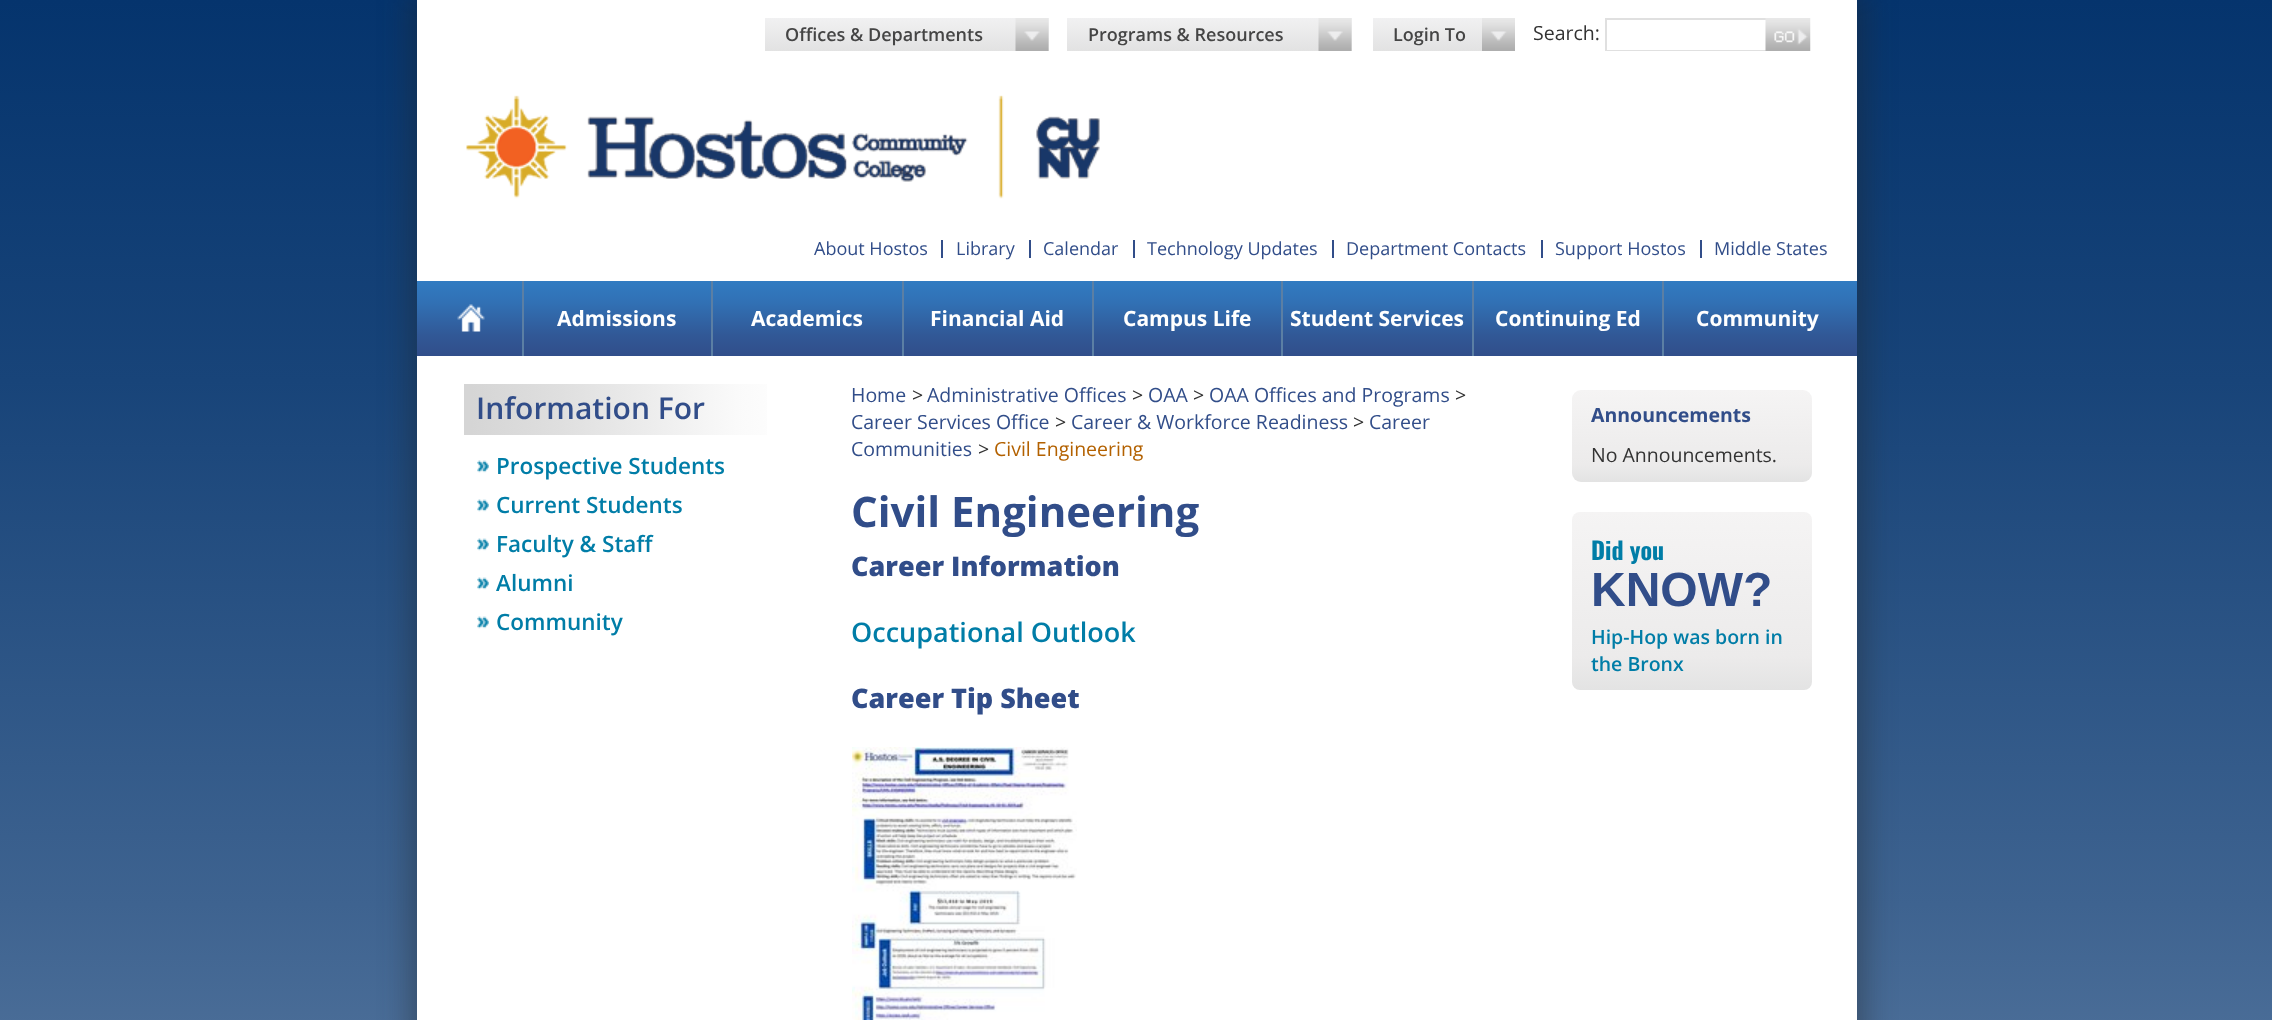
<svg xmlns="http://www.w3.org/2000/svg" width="2272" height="1020">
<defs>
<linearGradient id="g1" gradientUnits="userSpaceOnUse" x1="1136" y1="0" x2="1136" y2="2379"><stop offset="0" stop-color="#05346d"/><stop offset="0.16" stop-color="#184479"/><stop offset="0.38" stop-color="#3e6390"/><stop offset="0.59" stop-color="#6c89ac"/><stop offset="0.87" stop-color="#aebfd4"/><stop offset="1" stop-color="#c9d5e4"/></linearGradient>
<linearGradient id="g2" gradientUnits="userSpaceOnUse" x1="907" y1="18" x2="907" y2="51"><stop offset="0" stop-color="#f1f1f2"/><stop offset="1" stop-color="#e2e2e2"/></linearGradient>
<linearGradient id="g3" gradientUnits="userSpaceOnUse" x1="1209" y1="18" x2="1209" y2="51"><stop offset="0" stop-color="#f1f1f2"/><stop offset="1" stop-color="#e2e2e2"/></linearGradient>
<linearGradient id="g4" gradientUnits="userSpaceOnUse" x1="1444" y1="18" x2="1444" y2="51"><stop offset="0" stop-color="#f1f1f2"/><stop offset="1" stop-color="#e2e2e2"/></linearGradient>
<linearGradient id="g5" gradientUnits="userSpaceOnUse" x1="1137" y1="280" x2="1137" y2="356"><stop offset="0" stop-color="#317cc2"/><stop offset="0.29" stop-color="#3171b5"/><stop offset="0.73" stop-color="#315896"/><stop offset="1" stop-color="#314e8a"/></linearGradient>
<linearGradient id="g6" gradientUnits="userSpaceOnUse" x1="464" y1="410" x2="797" y2="410"><stop offset="0" stop-color="#ebebeb"/><stop offset="0" stop-color="#d5d5d5"/><stop offset="0.02" stop-color="#d5d5d5"/><stop offset="0.29" stop-color="#dfdfdf"/><stop offset="0.82" stop-color="#fafafa"/><stop offset="1" stop-color="#fff"/></linearGradient>
<linearGradient id="g7" gradientUnits="userSpaceOnUse" x1="1692" y1="390" x2="1692" y2="482"><stop offset="0" stop-color="#f5f4f4"/><stop offset="0.81" stop-color="#ecebeb"/><stop offset="1" stop-color="#e3e3e3"/></linearGradient>
<linearGradient id="g8" gradientUnits="userSpaceOnUse" x1="1692" y1="512" x2="1692" y2="690"><stop offset="0" stop-color="#f5f4f4"/><stop offset="0.81" stop-color="#ecebeb"/><stop offset="1" stop-color="#e3e3e3"/></linearGradient>
</defs>
<rect width="100%" height="100%" fill="#fff"/>
<rect width="2272" height="1020" fill="url(#g1)"/>
<rect x="410" y="-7" width="1455" height="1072" fill="#21262766" filter="blur(15px)"/>
<rect x="417" width="1440" height="1020" fill="#fff"/>
<rect x="765" y="18" width="284" height="33" fill="url(#g2)"/>
<text x="785" y="41" style="font-family:Open Sans;font-size:18px;font-weight:600;fill:#454545">Offices &amp; Departments</text>
<image x="1015" y="18" width="34" height="33" href="media/1.png"/>
<rect x="1067" y="18" width="285" height="33" fill="url(#g3)"/>
<text x="1088" y="41" style="font-family:Open Sans;font-size:18px;font-weight:600;fill:#454545">Programs &amp; Resources</text>
<image x="1318" y="18" width="34" height="33" href="media/2.png"/>
<rect x="1373" y="18" width="109" height="33" fill="url(#g4)"/>
<text x="1393" y="41" style="font-family:Open Sans;font-size:18px;font-weight:600;fill:#454545">Login To</text>
<image x="1482" y="18" width="33" height="33" href="media/3.png"/>
<text x="1533" y="40" style="font-family:Open Sans;font-size:19.5px;fill:#333">Search:</text>
<rect x="1605" y="18" width="161" height="2" fill="#e0e0e0"/>
<rect x="1605" y="50" width="161" height="1" fill="#e0e0e0"/>
<rect x="1605" y="18" width="2" height="33" fill="#e0e0e0"/>
<image x="1765" y="18" width="46" height="33" href="media/4.png"/>
<image x="466" y="95" width="634" height="104" href="media/5.png"/>
<text x="814" y="255" style="font-family:Open Sans;font-size:18px;fill:#314d89">About Hostos</text>
<rect x="941" y="240" width="2" height="18" fill="#314d89"/>
<text x="956" y="255" style="font-family:Open Sans;font-size:18px;fill:#314d89">Library</text>
<rect x="1029" y="240" width="2" height="18" fill="#314d89"/>
<text x="1043" y="255" style="font-family:Open Sans;font-size:18px;fill:#314d89">Calendar</text>
<rect x="1133" y="240" width="2" height="18" fill="#314d89"/>
<text x="1147" y="255" style="font-family:Open Sans;font-size:18px;fill:#314d89">Technology Updates</text>
<rect x="1332" y="240" width="2" height="18" fill="#314d89"/>
<text x="1346" y="255" style="font-family:Open Sans;font-size:18px;fill:#314d89">Department Contacts</text>
<rect x="1541" y="240" width="2" height="18" fill="#314d89"/>
<text x="1555" y="255" style="font-family:Open Sans;font-size:18px;fill:#314d89">Support Hostos</text>
<rect x="1700" y="240" width="2" height="18" fill="#314d89"/>
<text x="1714" y="255" style="font-family:Open Sans;font-size:18px;fill:#314d89">Middle States</text>
<rect x="417" y="281" width="1440" height="75" fill="url(#g5)"/>
<image x="457" y="304" width="28" height="28" href="media/6.png"/>
<rect x="522" y="281" width="2" height="75" fill="#5b7fa4"/>
<text x="557" y="326" style="font-family:Open Sans;font-size:21px;font-weight:bold;fill:#fff">Admissions</text>
<rect x="711" y="281" width="2" height="75" fill="#5b7fa4"/>
<text x="751" y="326" style="font-family:Open Sans;font-size:21px;font-weight:bold;fill:#fff">Academics</text>
<rect x="902" y="281" width="2" height="75" fill="#5b7fa4"/>
<text x="930" y="326" style="font-family:Open Sans;font-size:21px;font-weight:bold;fill:#fff">Financial Aid</text>
<rect x="1092" y="281" width="2" height="75" fill="#5b7fa4"/>
<text x="1123" y="326" style="font-family:Open Sans;font-size:21px;font-weight:bold;fill:#fff">Campus Life</text>
<rect x="1281" y="281" width="2" height="75" fill="#5b7fa4"/>
<text x="1290" y="326" style="font-family:Open Sans;font-size:21px;font-weight:bold;fill:#fff">Student Services</text>
<rect x="1472" y="281" width="2" height="75" fill="#5b7fa4"/>
<text x="1495" y="326" style="font-family:Open Sans;font-size:21px;font-weight:bold;fill:#fff">Continuing Ed</text>
<rect x="1662" y="281" width="2" height="75" fill="#5b7fa4"/>
<text x="1696" y="326" style="font-family:Open Sans;font-size:21px;font-weight:bold;fill:#fff">Community</text>
<rect x="464" y="384" width="303" height="51" fill="url(#g6)"/>
<text x="476" y="419" style="font-family:Open Sans;font-size:30px;font-weight:600;fill:#314d89">Information For</text>
<image x="477" y="460" width="12" height="13" href="media/7.png"/>
<text x="496" y="474" style="font-family:Open Sans;font-size:22.5px;font-weight:600;fill:#007da7">Prospective Students</text>
<image x="477" y="499" width="12" height="13" href="media/7.png"/>
<text x="496" y="513" style="font-family:Open Sans;font-size:22.5px;font-weight:600;fill:#007da7">Current Students</text>
<image x="477" y="538" width="12" height="13" href="media/7.png"/>
<text x="496" y="552" style="font-family:Open Sans;font-size:22.5px;font-weight:600;fill:#007da7">Faculty &amp; Staff</text>
<image x="477" y="577" width="12" height="13" href="media/7.png"/>
<text x="496" y="591" style="font-family:Open Sans;font-size:22.5px;font-weight:600;fill:#007da7">Alumni</text>
<image x="477" y="616" width="12" height="13" href="media/7.png"/>
<text x="496" y="630" style="font-family:Open Sans;font-size:22.5px;font-weight:600;fill:#007da7">Community</text>
<text x="927" y="402" style="font-family:Open Sans;font-size:19.5px;fill:#314d89">Administrative Offices</text>
<text x="1132" y="402" style="font-family:Open Sans;font-size:19.5px;fill:#333">&gt;</text>
<text x="1148" y="402" style="font-family:Open Sans;font-size:19.5px;fill:#314d89">OAA</text>
<text x="1193" y="402" style="font-family:Open Sans;font-size:19.5px;fill:#333">&gt;</text>
<text x="1209" y="402" style="font-family:Open Sans;font-size:19.5px;fill:#314d89">OAA Offices and Programs</text>
<text x="1455" y="402" style="font-family:Open Sans;font-size:19.5px;fill:#333">&gt;</text>
<text x="851" y="429" style="font-family:Open Sans;font-size:19.5px;fill:#314d89">Career Services Office</text>
<text x="1055" y="429" style="font-family:Open Sans;font-size:19.5px;fill:#333">&gt;</text>
<text x="1071" y="429" style="font-family:Open Sans;font-size:19.5px;fill:#314d89">Career &amp; Workforce Readiness</text>
<text x="1353" y="429" style="font-family:Open Sans;font-size:19.5px;fill:#333">&gt;</text>
<text x="1369" y="429" style="font-family:Open Sans;font-size:19.5px;fill:#314d89">Career</text>
<text x="851" y="456" style="font-family:Open Sans;font-size:19.5px;fill:#314d89">Communities</text>
<text x="978" y="456" style="font-family:Open Sans;font-size:19.5px;fill:#333">&gt;</text>
<text x="994" y="456" style="font-family:Open Sans;font-size:19.5px;fill:#b36100">Civil Engineering</text>
<text x="851" y="402" style="font-family:Open Sans;font-size:19.5px;fill:#314d89">Home</text>
<text x="912" y="402" style="font-family:Open Sans;font-size:19.5px;fill:#333">&gt;</text>
<text x="851" y="527" style="font-family:Open Sans;font-size:42px;font-weight:bold;fill:#314d89">Civil Engineering</text>
<text x="851" y="576" style="font-family:Open Sans;font-size:27px;font-weight:800;fill:#314d89">Career Information</text>
<text x="851" y="642" style="font-family:Open Sans;font-size:27px;font-weight:600;fill:#007da7">Occupational Outlook</text>
<text x="851" y="708" style="font-family:Open Sans;font-size:27px;font-weight:800;fill:#314d89">Career Tip Sheet</text>
<image x="852" y="747" width="225" height="273" href="media/8.png"/>
<rect x="1572" y="390" width="240" height="92" rx="9" fill="url(#g7)"/>
<text x="1591" y="422" style="font-family:Open Sans;font-size:19.5px;font-weight:bold;fill:#314d89">Announcements</text>
<text x="1591" y="462" style="font-family:Open Sans;font-size:19.5px;fill:#333">No Announcements.</text>
<rect x="1572" y="512" width="240" height="178" rx="8" fill="url(#g8)"/>
<text x="1591" y="560" style="font-family:Oswald;font-size:24px;font-weight:bold;fill:#007da7">Did you</text>
<text x="1591" y="606" style="font-family:Liberation Sans;font-size:48px;font-weight:bold;fill:#314d89">KNOW?</text>
<text x="1591" y="644" style="font-family:Open Sans;font-size:19.5px;font-weight:600;fill:#007da7">Hip-Hop was born in</text>
<text x="1591" y="671" style="font-family:Open Sans;font-size:19.5px;font-weight:600;fill:#007da7">the Bronx</text>
</svg>
